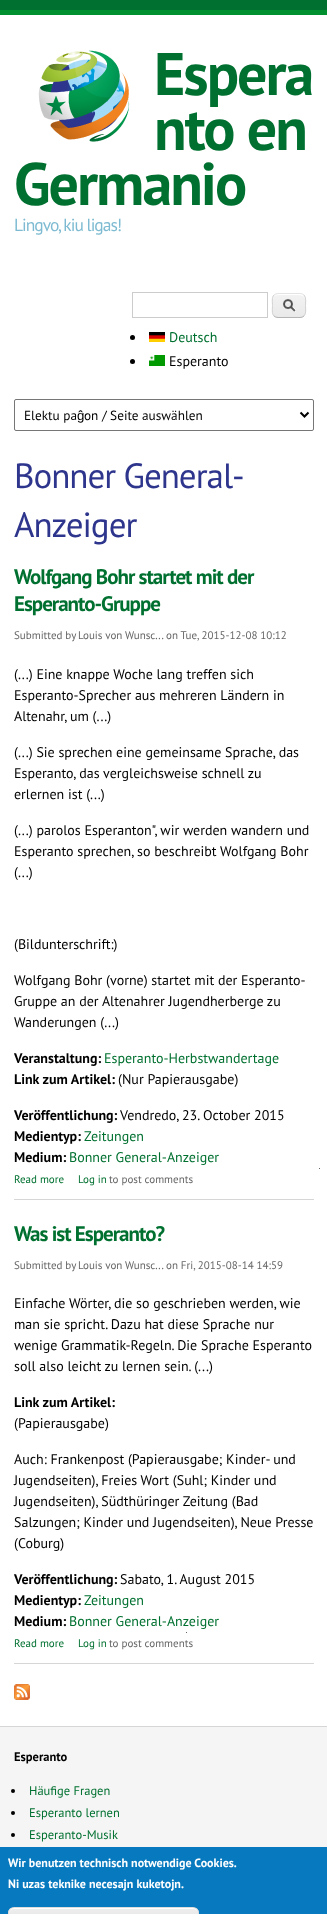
<svg xmlns="http://www.w3.org/2000/svg" width="327" height="1914">
<defs>
<clipPath id="clip1"><rect x="8" y="1907" width="191" height="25" rx="6"/></clipPath>
<linearGradient id="g1" gradientUnits="userSpaceOnUse" x1="104" y1="1908" x2="104" y2="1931"><stop offset="0.05" stop-color="#ededed"/><stop offset="1" stop-color="#dfdfdf"/></linearGradient>
</defs>
<rect width="100%" height="100%" fill="#fff"/>
<rect width="327" height="10" fill="#007030"/>
<rect y="10" width="327" height="5" fill="#009030"/>
<image x="38" y="50" width="92" height="92" href="media/1.png"/>
<text x="154" y="95" style="font-family:PT Sans;font-size:60px;font-weight:bold;letter-spacing:-2px;fill:#007030">Espera</text>
<text x="154" y="150" style="font-family:PT Sans;font-size:60px;font-weight:bold;letter-spacing:-2px;fill:#007030">nto en</text>
<text x="14" y="205" style="font-family:PT Sans;font-size:60px;font-weight:bold;letter-spacing:-2px;fill:#007030">Germanio</text>
<text x="14" y="231" style="font-family:PT Sans;font-size:17.5px;letter-spacing:-1px;fill:#7ebbd2">Lingvo, kiu ligas!</text>
<rect x="132.5" y="292.5" width="135" height="25" fill="none" stroke="#ccc"/>
<image x="272" y="294" width="34" height="24" href="media/2.png"/>
<path d="M278 295h18c7.5 0 9 1.5 9 6c0-7-2.5-7-8.5-7h-15c-6.5 0-8.5 .5-8.5 7c0-3 1-6 5-6zm27 16.5v1.5zm-32 1.5v-1z" fill="#fff" fill-rule="evenodd"/>
<path d="M274 295c1-1 2.5-1.5 4-1.5h22c1.5 0 3 .5 4 1.5" fill="none" stroke="#e4e4e4"/>
<path d="M304 295c2.5 2.5 1.5 7.5 1.5 10.5c0 3 1 8-1.5 10.5" fill="none" stroke="#d2d2d2"/>
<path d="M304 316c-1 1-2.5 1.5-4 1.5h-22c-1.5 0-3-.5-4-1.5" fill="none" stroke="#b4b4b4"/>
<path d="M274 316c-2.5-2.5-1.5-7.5-1.5-10.5c0-3-1-8 1.5-10.5" fill="none" stroke="#d2d2d2"/>
<circle cx="132.5" cy="337.5" r="2.5" fill="#000"/>
<image x="149" y="332" width="16" height="10" href="media/3.png"/>
<text x="169" y="342" style="font-family:PT Sans;font-size:14px;fill:#007030">Deutsch</text>
<circle cx="132.5" cy="361.5" r="2.5" fill="#000"/>
<image x="149" y="355" width="16" height="11" href="media/4.png"/>
<text x="169" y="366" style="font-family:PT Sans;font-size:14px;fill:#000">Esperanto</text>
<rect x="14.5" y="399.5" width="299" height="31" rx="1.5" fill="none" stroke="#767676"/>
<path d="M300.5 412.5l4 4l4-4" fill="none" stroke="#000" stroke-width="2"/>
<text x="24" y="420" style="font-family:PT Sans;font-size:13.25px;fill:#000">Elektu pa</text>
<text x="77" y="420" style="font-family:Liberation Sans;font-size:13.25px;fill:#000">ĝ</text>
<text x="84" y="420" style="font-family:PT Sans;font-size:13.25px;fill:#000">on / Seite auswählen</text>
<text x="14" y="488" style="font-family:PT Sans;font-size:35px;letter-spacing:-1px;fill:#2e358c">Bonner General-</text>
<text x="14" y="537" style="font-family:PT Sans;font-size:35px;letter-spacing:-1px;fill:#2e358c">Anzeiger</text>
<rect x="14" y="1199" width="300" height="1" fill="#d6d6d6"/>
<text x="14" y="584" style="font-family:PT Sans;font-size:21px;font-weight:bold;letter-spacing:-1px;fill:#007030">Wolfgang Bohr startet mit der</text>
<text x="14" y="611" style="font-family:PT Sans;font-size:21px;font-weight:bold;letter-spacing:-1px;fill:#007030">Esperanto-Gruppe</text>
<text x="14" y="639" style="font-family:PT Sans;font-size:11px;fill:#666">Submitted by</text>
<text x="78" y="639" style="font-family:PT Sans;font-size:11px;fill:#666">Louis von Wunsc...</text>
<text x="166" y="639" style="font-family:PT Sans;font-size:11px;fill:#666">on Tue, 2015-12-08 10:12</text>
<text x="14" y="679" style="font-family:PT Sans;font-size:14px;fill:#000">(...) Eine knappe Woche lang treffen sich</text>
<text x="14" y="700" style="font-family:PT Sans;font-size:14px;fill:#000">Esperanto-Sprecher aus mehreren Ländern in</text>
<text x="14" y="721" style="font-family:PT Sans;font-size:14px;fill:#000">Altenahr, um (...)</text>
<text x="14" y="757" style="font-family:PT Sans;font-size:14px;fill:#000">(...) Sie sprechen eine gemeinsame Sprache, das</text>
<text x="14" y="778" style="font-family:PT Sans;font-size:14px;fill:#000">Esperanto, das vergleichsweise schnell zu</text>
<text x="14" y="799" style="font-family:PT Sans;font-size:14px;fill:#000">erlernen ist (...)</text>
<text x="14" y="835" style="font-family:PT Sans;font-size:14px;fill:#000">(...) parolos Esperanton", wir werden wandern und</text>
<text x="14" y="856" style="font-family:PT Sans;font-size:14px;fill:#000">Esperanto sprechen, so beschreibt Wolfgang Bohr</text>
<text x="14" y="877" style="font-family:PT Sans;font-size:14px;fill:#000">(...)</text>
<text x="14" y="949" style="font-family:PT Sans;font-size:14px;fill:#000">(Bildunterschrift:)</text>
<text x="14" y="985" style="font-family:PT Sans;font-size:14px;fill:#000">Wolfgang Bohr (vorne) startet mit der Esperanto-</text>
<text x="14" y="1006" style="font-family:PT Sans;font-size:14px;fill:#000">Gruppe an der Altenahrer Jugendherberge zu</text>
<text x="14" y="1027" style="font-family:PT Sans;font-size:14px;fill:#000">Wanderungen (...)</text>
<text x="14" y="1063" style="font-family:PT Sans;font-size:14px;font-weight:bold;fill:#000">Veranstaltung:</text>
<text x="104" y="1063" style="font-family:PT Sans;font-size:14px;fill:#007030">Esperanto-Herbstwandertage</text>
<text x="14" y="1084" style="font-family:PT Sans;font-size:14px;font-weight:bold;fill:#000">Link zum Artikel:</text>
<text x="118" y="1084" style="font-family:PT Sans;font-size:14px;fill:#000">(Nur Papierausgabe)</text>
<text x="14" y="1120" style="font-family:PT Sans;font-size:14px;font-weight:bold;fill:#000">Veröffentlichung:</text>
<text x="120" y="1120" style="font-family:PT Sans;font-size:14px;fill:#000">Vendredo, 23. October 2015</text>
<text x="14" y="1141" style="font-family:PT Sans;font-size:14px;font-weight:bold;fill:#000">Medientyp:</text>
<text x="84" y="1141" style="font-family:PT Sans;font-size:14px;fill:#007030">Zeitungen</text>
<text x="14" y="1162" style="font-family:PT Sans;font-size:14px;font-weight:bold;fill:#000">Medium:</text>
<text x="69" y="1162" style="font-family:PT Sans;font-size:14px;fill:#007030">Bonner General-Anzeiger</text>
<text x="14" y="1183" style="font-family:PT Sans;font-size:11px;fill:#007030">Read more</text>
<text x="78" y="1183" style="font-family:PT Sans;font-size:11px;fill:#007030">Log in</text>
<text x="109" y="1183" style="font-family:PT Sans;font-size:11px;fill:#666">to post comments</text>
<rect x="319" y="1168" width="1" height="1" fill="#666"/>
<rect x="14" y="1663" width="300" height="1" fill="#d6d6d6"/>
<text x="14" y="1241" style="font-family:PT Sans;font-size:21px;font-weight:bold;letter-spacing:-1px;fill:#007030">Was ist Esperanto?</text>
<text x="14" y="1269" style="font-family:PT Sans;font-size:11px;fill:#666">Submitted by</text>
<text x="78" y="1269" style="font-family:PT Sans;font-size:11px;fill:#666">Louis von Wunsc...</text>
<text x="166" y="1269" style="font-family:PT Sans;font-size:11px;fill:#666">on Fri, 2015-08-14 14:59</text>
<text x="14" y="1308" style="font-family:PT Sans;font-size:14px;fill:#000">Einfache Wörter, die so geschrieben werden, wie</text>
<text x="14" y="1329" style="font-family:PT Sans;font-size:14px;fill:#000">man sie spricht. Dazu hat diese Sprache nur</text>
<text x="14" y="1350" style="font-family:PT Sans;font-size:14px;fill:#000">wenige Grammatik-Regeln. Die Sprache Esperanto</text>
<text x="14" y="1371" style="font-family:PT Sans;font-size:14px;fill:#000">soll also leicht zu lernen sein. (...)</text>
<text x="14" y="1407" style="font-family:PT Sans;font-size:14px;font-weight:bold;fill:#000">Link zum Artikel:</text>
<text x="14" y="1428" style="font-family:PT Sans;font-size:14px;fill:#000">(Papierausgabe)</text>
<text x="14" y="1464" style="font-family:PT Sans;font-size:14px;fill:#000">Auch: Frankenpost (Papierausgabe; Kinder- und</text>
<text x="14" y="1485" style="font-family:PT Sans;font-size:14px;fill:#000">Jugendseiten), Freies Wort (Suhl; Kinder und</text>
<text x="14" y="1506" style="font-family:PT Sans;font-size:14px;fill:#000">Jugendseiten), Südthüringer Zeitung (Bad</text>
<text x="14" y="1527" style="font-family:PT Sans;font-size:14px;fill:#000">Salzungen; Kinder und Jugendseiten), Neue Presse</text>
<text x="14" y="1548" style="font-family:PT Sans;font-size:14px;fill:#000">(Coburg)</text>
<text x="14" y="1584" style="font-family:PT Sans;font-size:14px;font-weight:bold;fill:#000">Veröffentlichung:</text>
<text x="120" y="1584" style="font-family:PT Sans;font-size:14px;fill:#000">Sabato, 1. August 2015</text>
<text x="14" y="1605" style="font-family:PT Sans;font-size:14px;font-weight:bold;fill:#000">Medientyp:</text>
<text x="84" y="1605" style="font-family:PT Sans;font-size:14px;fill:#007030">Zeitungen</text>
<text x="14" y="1626" style="font-family:PT Sans;font-size:14px;font-weight:bold;fill:#000">Medium:</text>
<text x="69" y="1626" style="font-family:PT Sans;font-size:14px;fill:#007030">Bonner General-Anzeiger</text>
<text x="14" y="1647" style="font-family:PT Sans;font-size:11px;fill:#007030">Read more</text>
<text x="78" y="1647" style="font-family:PT Sans;font-size:11px;fill:#007030">Log in</text>
<text x="109" y="1647" style="font-family:PT Sans;font-size:11px;fill:#666">to post comments</text>
<rect x="186" y="1632" width="1" height="1" fill="#666"/>
<image x="14" y="1684" width="16" height="16" href="media/5.png"/>
<rect y="1727" width="327" height="120" fill="#f5f5f5"/>
<rect y="1726" width="327" height="1" fill="#d6d6d6"/>
<text x="14" y="1761" style="font-family:PT Sans;font-size:12.5px;font-weight:bold;fill:#000">Esperanto</text>
<circle cx="13" cy="1791" r="2" fill="#000"/>
<text x="29" y="1795" style="font-family:PT Sans;font-size:12.5px;fill:#007030">Häufige Fragen</text>
<circle cx="13" cy="1813" r="2" fill="#000"/>
<text x="29" y="1817" style="font-family:PT Sans;font-size:12.5px;fill:#007030">Esperanto lernen</text>
<circle cx="13" cy="1835" r="2" fill="#000"/>
<text x="29" y="1839" style="font-family:PT Sans;font-size:12.5px;fill:#007030">Esperanto-Musik</text>
<rect y="1847" width="327" height="67" fill="#0779bf"/>
<text x="8" y="1867" style="font-family:PT Sans;font-size:12px;font-weight:bold;fill:#fff">Wir benutzen technisch notwendige Cookies.</text>
<text x="8" y="1888" style="font-family:PT Sans;font-size:12px;font-weight:bold;fill:#fff">Ni uzas teknike necesajn kuketojn.</text>
<g clip-path="url(#clip1)">
<rect x="8" y="1908" width="191" height="6" fill="url(#g1)"/>
</g>
<path d="M14 1909h180c3 1 4 2 4 5v-1c0-3-2-5-5-5h-179c-3 0-5 2-5 5v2c0-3 1-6 5-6zm-5 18v-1z" fill="#fff" fill-rule="evenodd"/>
<rect x="8.5" y="1907.5" width="190" height="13" rx="5.5" fill="none" stroke="#dcdcdc"/>
</svg>
